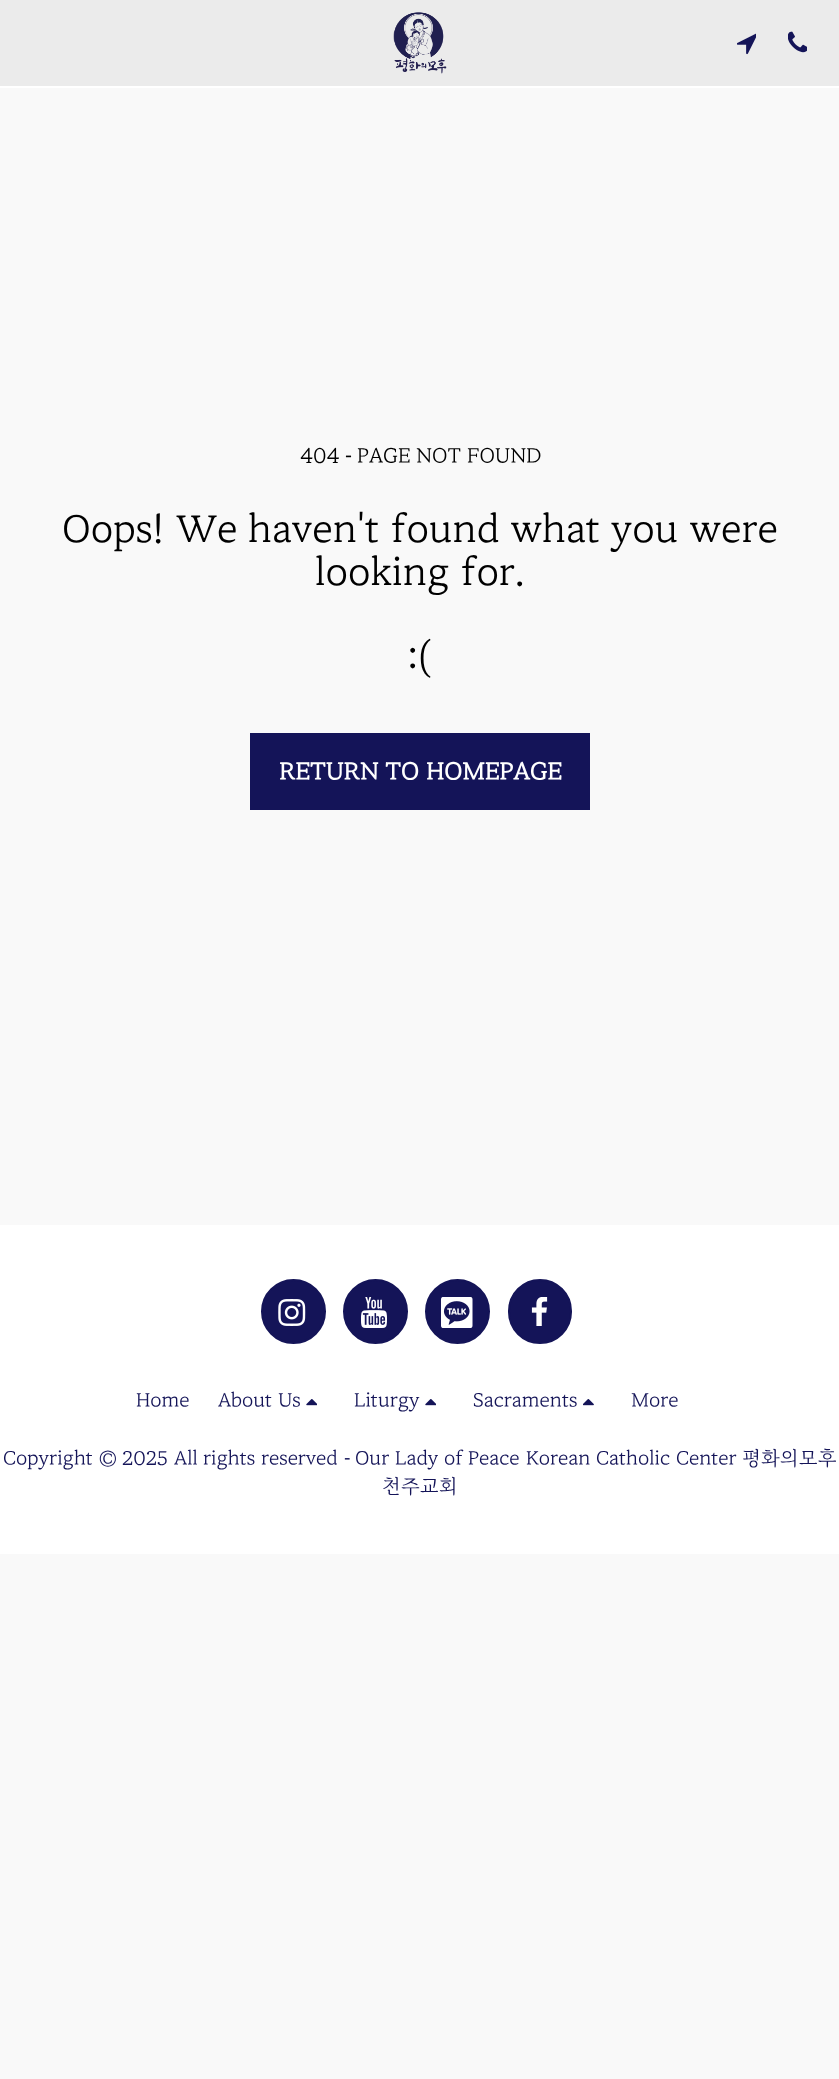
<svg xmlns="http://www.w3.org/2000/svg" width="839" height="2079">
<rect width="100%" height="100%" fill="#f9f9f9"/>
<rect width="839" height="86" fill="#ebebeb"/>
<rect y="86" width="839" height="2" fill="#fff"/>
<image x="393" y="12" width="54" height="62" href="media/1.png"/>
<image x="737" y="33" width="19" height="22" href="media/2.png"/>
<image x="788" y="31" width="19" height="22" href="media/3.png"/>
<text x="300" y="462" style="font-family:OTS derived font;font-size:21px;fill:#000">404</text>
<text x="345" y="462" style="font-family:Liberation Sans;font-size:21px;fill:#000">-</text>
<text x="357" y="462" style="font-family:OTS derived font;font-size:21px;fill:#000">PAGE</text>
<text x="416" y="462" style="font-family:OTS derived font;font-size:21px;fill:#000">NOT</text>
<text x="467" y="462" style="font-family:OTS derived font;font-size:21px;fill:#000">FOUND</text>
<text x="62" y="541" style="font-family:OTS derived font;font-size:39px;fill:#000">Oops!</text>
<text x="176" y="541" style="font-family:OTS derived font;font-size:39px;fill:#000">We</text>
<text x="248" y="541" style="font-family:OTS derived font;font-size:39px;fill:#000">haven't</text>
<text x="391" y="541" style="font-family:OTS derived font;font-size:39px;fill:#000">found</text>
<text x="511" y="541" style="font-family:OTS derived font;font-size:39px;fill:#000">what</text>
<text x="611" y="541" style="font-family:OTS derived font;font-size:39px;fill:#000">you</text>
<text x="690" y="541" style="font-family:OTS derived font;font-size:39px;fill:#000">were</text>
<text x="315" y="584" style="font-family:OTS derived font;font-size:39px;fill:#000">looking</text>
<text x="461" y="584" style="font-family:OTS derived font;font-size:39px;fill:#000">for.</text>
<text x="408" y="670" style="font-family:OTS derived font;font-size:39px;fill:#000">:(</text>
<rect x="250" y="733" width="340" height="77" fill="#141458"/>
<text x="279" y="779" style="font-family:OTS derived font;font-size:24.5px;font-weight:bold;fill:#fff">RETURN</text>
<text x="385" y="779" style="font-family:OTS derived font;font-size:24.5px;font-weight:bold;fill:#fff">TO</text>
<text x="426" y="779" style="font-family:OTS derived font;font-size:24.5px;font-weight:bold;fill:#fff">HOMEPAGE</text>
<rect y="1225" width="839" height="329" fill="#fff"/>
<circle cx="293.5" cy="1311.5" r="31.5" fill="#141458" stroke="#141458" stroke-width="2"/>
<image x="278" y="1299" width="28" height="27" href="media/4.png"/>
<circle cx="375.5" cy="1311.5" r="31.5" fill="#141458" stroke="#141458" stroke-width="2"/>
<image x="361" y="1297" width="26" height="31" href="media/5.png"/>
<circle cx="457.5" cy="1311.5" r="31.5" fill="#141458" stroke="#141458" stroke-width="2"/>
<image x="441" y="1297" width="32" height="31" href="media/6.png"/>
<rect x="509" y="1280" width="62" height="63" rx="31" fill="#141458" stroke="#141458" stroke-width="2"/>
<image x="531" y="1297" width="17" height="29" href="media/7.png"/>
<text x="136" y="1406" style="font-family:OTS derived font;font-size:19.5px;fill:#141458">Home</text>
<text x="218" y="1406" style="font-family:OTS derived font;font-size:19.5px;fill:#141458">About</text>
<text x="278" y="1406" style="font-family:OTS derived font;font-size:19.5px;fill:#141458">Us</text>
<image x="306" y="1399" width="11" height="7" href="media/8.png"/>
<text x="354" y="1406" style="font-family:OTS derived font;font-size:19.5px;fill:#141458">Liturgy</text>
<image x="425" y="1399" width="11" height="7" href="media/8.png"/>
<text x="473" y="1406" style="font-family:OTS derived font;font-size:19.5px;fill:#141458">Sacraments</text>
<image x="583" y="1399" width="11" height="7" href="media/9.png"/>
<text x="631" y="1406" style="font-family:OTS derived font;font-size:19.5px;fill:#141458">More</text>
<text x="3" y="1464" style="font-family:OTS derived font;font-size:19.5px;fill:#141458">Copyright</text>
<text x="99" y="1464" style="font-family:OTS derived font;font-size:19.5px;fill:#141458">©</text>
<text x="122" y="1464" style="font-family:OTS derived font;font-size:19.5px;fill:#141458">2025</text>
<text x="174" y="1464" style="font-family:OTS derived font;font-size:19.5px;fill:#141458">All</text>
<text x="203" y="1464" style="font-family:OTS derived font;font-size:19.5px;fill:#141458">rights</text>
<text x="261" y="1464" style="font-family:OTS derived font;font-size:19.5px;fill:#141458">reserved</text>
<text x="344" y="1464" style="font-family:Liberation Sans;font-size:19.5px;fill:#141458">-</text>
<text x="355" y="1464" style="font-family:OTS derived font;font-size:19.5px;fill:#141458">Our</text>
<text x="395" y="1464" style="font-family:OTS derived font;font-size:19.5px;fill:#141458">Lady</text>
<text x="444" y="1464" style="font-family:OTS derived font;font-size:19.5px;fill:#141458">of</text>
<text x="468" y="1464" style="font-family:OTS derived font;font-size:19.5px;fill:#141458">Peace</text>
<text x="526" y="1464" style="font-family:OTS derived font;font-size:19.5px;fill:#141458">Korean</text>
<text x="596" y="1464" style="font-family:OTS derived font;font-size:19.5px;fill:#141458">Catholic</text>
<text x="676" y="1464" style="font-family:OTS derived font;font-size:19.5px;fill:#141458">Center</text>
<text x="742" y="1464" style="font-family:OTS derived font;font-size:19.5px;fill:#141458">평화의모후</text>
<text x="382" y="1492" style="font-family:OTS derived font;font-size:19.5px;fill:#141458">천주교회</text>
</svg>
